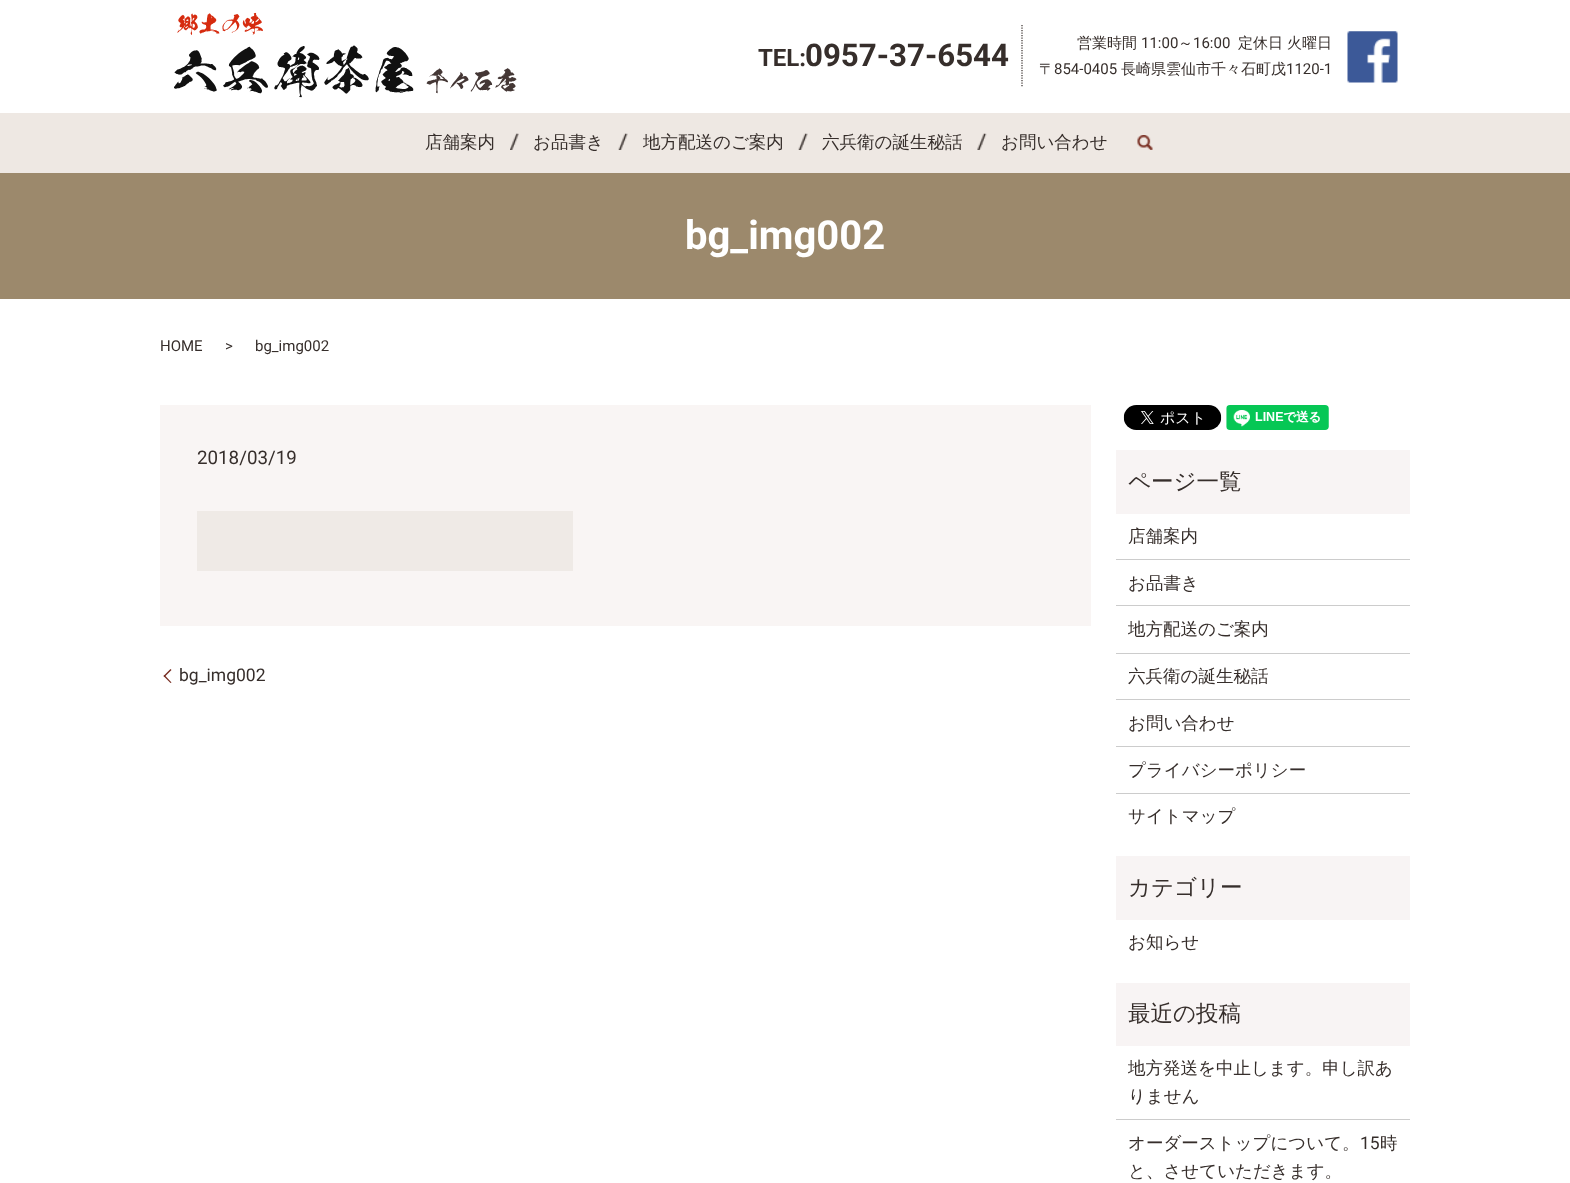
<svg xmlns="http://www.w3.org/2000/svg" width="1570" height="1183">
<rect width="100%" height="100%" fill="#fff"/>
<image x="174" y="12" width="343" height="86" href="media/1.png"/>
<path d="M1022 25v62.5" fill="none" stroke="#362e2b" stroke-width="1.2" stroke-dasharray="1.25 1.25"/>
<text x="758" y="66" style="font-family:Roboto;font-size:24px;font-weight:bold;fill:#362e2b">TEL:</text>
<text x="805" y="66" style="font-family:Roboto;font-size:31.25px;font-weight:bold;fill:#362e2b">0957-37-6544</text>
<text x="1077" y="48" style="font-family:WenQuanYi Zen Hei;font-size:15px;font-weight:500;fill:#362e2b">営業時間</text>
<text x="1141" y="48" style="font-family:Roboto;font-size:15px;fill:#362e2b">11:00</text>
<text x="1178" y="48" style="font-family:WenQuanYi Zen Hei;font-size:15px;font-weight:500;fill:#362e2b">～</text>
<text x="1193" y="48" style="font-family:Roboto;font-size:15px;fill:#362e2b">16:00</text>
<text x="1238" y="48" style="font-family:WenQuanYi Zen Hei;font-size:15px;font-weight:500;fill:#362e2b">定休日</text>
<text x="1287" y="48" style="font-family:WenQuanYi Zen Hei;font-size:15px;font-weight:500;fill:#362e2b">火曜日</text>
<text x="1039" y="74" style="font-family:WenQuanYi Zen Hei;font-size:15px;font-weight:500;fill:#362e2b">〒</text>
<text x="1054" y="74" style="font-family:Roboto;font-size:15px;fill:#362e2b">854-0405</text>
<text x="1121" y="74" style="font-family:WenQuanYi Zen Hei;font-size:15px;font-weight:500;fill:#362e2b">長崎県雲仙市千々石町戊</text>
<text x="1286" y="74" style="font-family:Roboto;font-size:15px;fill:#362e2b">1120-1</text>
<image x="1347" y="31" width="51" height="52" href="media/2.png"/>
<rect y="113" width="1570" height="60" fill="#eee8e3"/>
<text x="425" y="148" style="font-family:WenQuanYi Zen Hei;font-size:17.5px;font-weight:500;fill:#362e2b">店舗案内</text>
<image x="510" y="133" width="9" height="17" href="media/3.png"/>
<text x="533" y="148" style="font-family:WenQuanYi Zen Hei;font-size:17.5px;font-weight:500;fill:#362e2b">お品書き</text>
<image x="618" y="133" width="10" height="17" href="media/4.png"/>
<text x="643" y="148" style="font-family:WenQuanYi Zen Hei;font-size:17.5px;font-weight:500;fill:#362e2b">地方配送のご案内</text>
<image x="798" y="133" width="10" height="17" href="media/4.png"/>
<text x="822" y="148" style="font-family:WenQuanYi Zen Hei;font-size:17.5px;font-weight:500;fill:#362e2b">六兵衛の誕生秘話</text>
<image x="977" y="133" width="10" height="17" href="media/5.png"/>
<text x="1001" y="148" style="font-family:WenQuanYi Zen Hei;font-size:17.5px;font-weight:500;fill:#362e2b">お問い合わせ</text>
<image x="1137" y="135" width="16" height="15" href="media/6.png"/>
<rect y="173" width="1570" height="126" fill="#9c896c"/>
<text x="685" y="249" style="font-family:Roboto;font-size:40px;font-weight:bold;fill:#fff">bg_img002</text>
<text x="160" y="351" style="font-family:Roboto;font-size:15px;fill:#362e2b">HOME</text>
<text x="225" y="351" style="font-family:Roboto;font-size:15px;fill:#362e2b">&gt;</text>
<text x="255" y="351" style="font-family:Roboto;font-size:15px;fill:#362e2b">bg_img002</text>
<rect x="160" y="405" width="931" height="221" fill="#f9f5f4"/>
<text x="197" y="464" style="font-family:Roboto;font-size:18.75px;fill:#362e2b">2018/03/19</text>
<rect x="197" y="511" width="376" height="60" fill="#efeae6"/>
<path d="M163.5 676l7-7l1 1l-7 7z" fill="#772c20"/>
<text x="179" y="681" style="font-family:Roboto;font-size:17.5px;fill:#362e2b">bg_img002</text>
<path d="M170.5 683l-7-7l1-1l7 7.5z" fill="#772c20"/>
<image x="1123" y="405" width="99" height="25" href="media/7.png"/>
<image x="1226" y="405" width="103" height="25" href="media/8.png"/>
<rect x="1116" y="450" width="294" height="64" fill="#f8f4f4"/>
<text x="1128" y="489" style="font-family:WenQuanYi Zen Hei;font-size:22.5px;font-weight:500;fill:#362e2b">ページ一覧</text>
<rect x="1116" y="559" width="294" height="1" fill="#ccc"/>
<text x="1128" y="542" style="font-family:WenQuanYi Zen Hei;font-size:17.5px;font-weight:500;fill:#362e2b">店舗案内</text>
<rect x="1116" y="605" width="294" height="1" fill="#ccc"/>
<text x="1128" y="589" style="font-family:WenQuanYi Zen Hei;font-size:17.5px;font-weight:500;fill:#362e2b">お品書き</text>
<rect x="1116" y="653" width="294" height="1" fill="#ccc"/>
<text x="1128" y="635" style="font-family:WenQuanYi Zen Hei;font-size:17.5px;font-weight:500;fill:#362e2b">地方配送のご案内</text>
<rect x="1116" y="699" width="294" height="1" fill="#ccc"/>
<text x="1128" y="682" style="font-family:WenQuanYi Zen Hei;font-size:17.5px;font-weight:500;fill:#362e2b">六兵衛の誕生秘話</text>
<rect x="1116" y="746" width="294" height="1" fill="#ccc"/>
<text x="1128" y="729" style="font-family:WenQuanYi Zen Hei;font-size:17.5px;font-weight:500;fill:#362e2b">お問い合わせ</text>
<rect x="1116" y="793" width="294" height="1" fill="#ccc"/>
<text x="1128" y="776" style="font-family:WenQuanYi Zen Hei;font-size:17.5px;font-weight:500;fill:#362e2b">プライバシーポリシー</text>
<text x="1128" y="822" style="font-family:WenQuanYi Zen Hei;font-size:17.5px;font-weight:500;fill:#362e2b">サイトマップ</text>
<rect x="1116" y="856" width="294" height="64" fill="#f8f4f4"/>
<text x="1128" y="895" style="font-family:WenQuanYi Zen Hei;font-size:22.5px;font-weight:500;fill:#362e2b">カテゴリー</text>
<text x="1128" y="948" style="font-family:WenQuanYi Zen Hei;font-size:17.5px;font-weight:500;fill:#362e2b">お知らせ</text>
<rect x="1116" y="983" width="294" height="63" fill="#f8f4f4"/>
<text x="1128" y="1021" style="font-family:WenQuanYi Zen Hei;font-size:22.5px;font-weight:500;fill:#362e2b">最近の投稿</text>
<rect x="1116" y="1119" width="294" height="1" fill="#ccc"/>
<text x="1128" y="1074" style="font-family:WenQuanYi Zen Hei;font-size:17.5px;font-weight:500;fill:#362e2b">地方発送を中止します。申し訳あ</text>
<text x="1128" y="1102" style="font-family:WenQuanYi Zen Hei;font-size:17.5px;font-weight:500;fill:#362e2b">りません</text>
<text x="1128" y="1149" style="font-family:WenQuanYi Zen Hei;font-size:17.5px;font-weight:500;fill:#362e2b">オーダーストップについて。</text>
<text x="1360" y="1149" style="font-family:Roboto;font-size:17.5px;fill:#362e2b">15</text>
<text x="1380" y="1149" style="font-family:WenQuanYi Zen Hei;font-size:17.5px;font-weight:500;fill:#362e2b">時</text>
<text x="1128" y="1177" style="font-family:WenQuanYi Zen Hei;font-size:17.5px;font-weight:500;fill:#362e2b">と、させていただきます。</text>
</svg>
